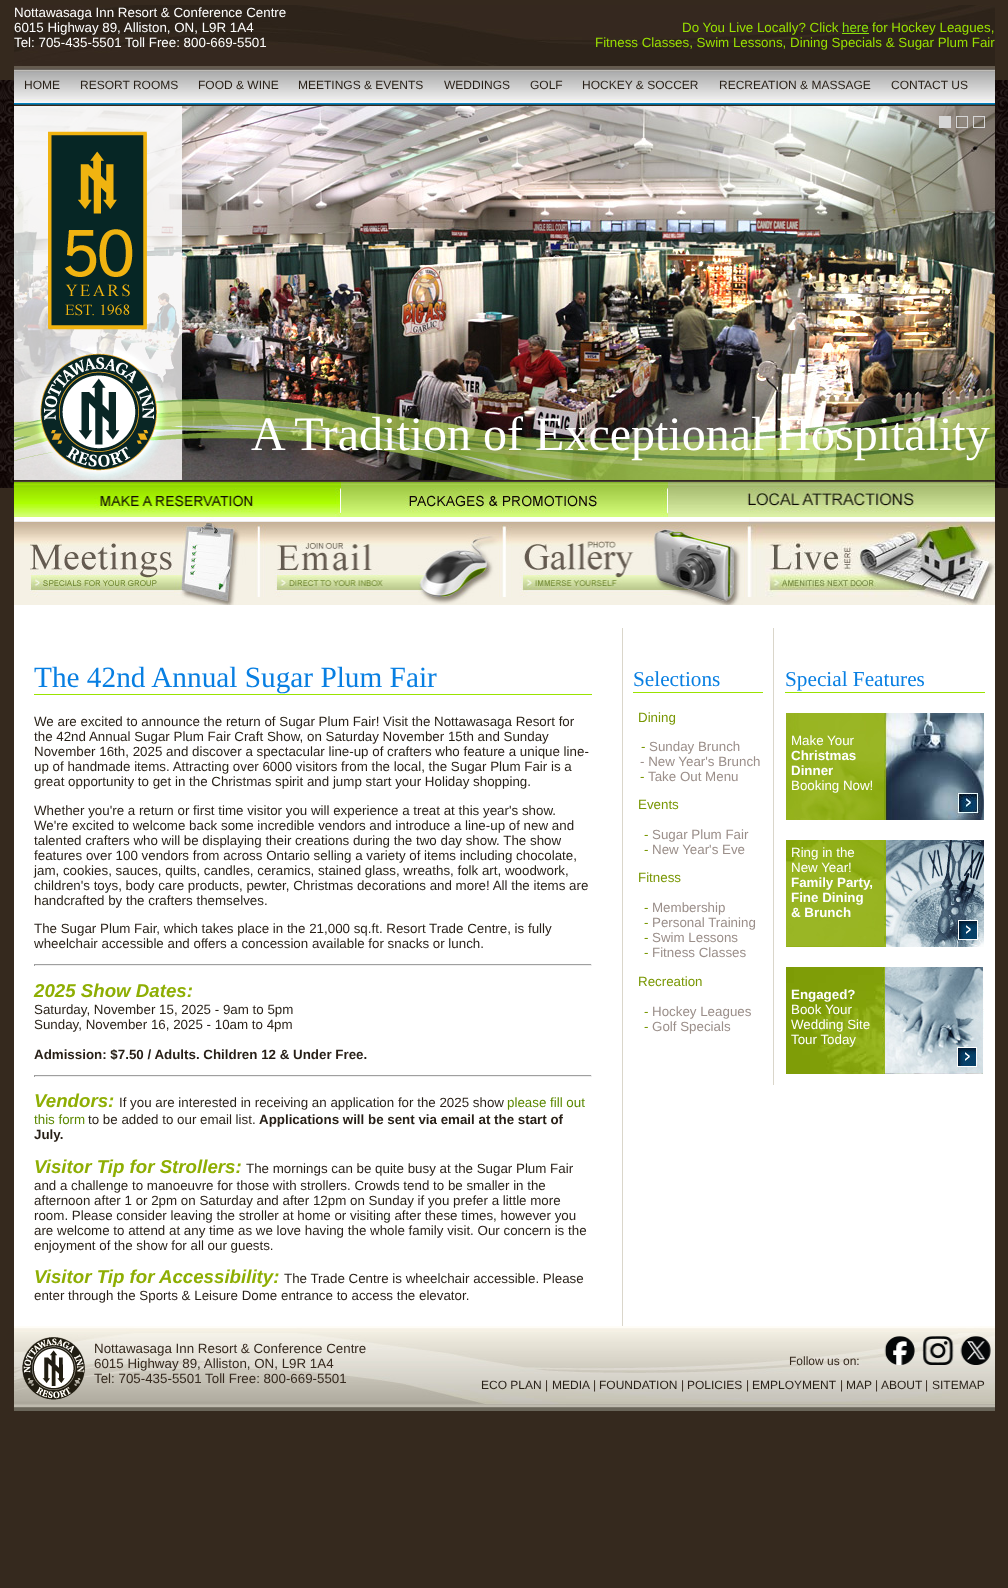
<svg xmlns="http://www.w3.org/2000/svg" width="1008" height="1588">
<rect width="100%" height="100%" fill="#35291e"/>
<image x="0" y="80" width="1008" height="408" href="media/1.png"/>
<rect x="14" y="517" width="981" height="809" fill="#fff"/>
<image x="14" y="5" width="981" height="61" href="media/2.png"/>
<text x="14" y="17" style="font-family:Liberation Sans;font-size:13.35px;fill:#fff">Nottawasaga Inn Resort &amp; Conference Centre</text>
<text x="14" y="32" style="font-family:Liberation Sans;font-size:13.35px;fill:#fff">6015 Highway 89, Alliston, ON, L9R 1A4</text>
<text x="14" y="47" style="font-family:Liberation Sans;font-size:13.35px;fill:#fff">Tel: 705-435-5501 Toll Free: 800-669-5501</text>
<text x="682" y="32" style="font-family:Liberation Sans;font-size:13.35px;fill:#99df02">Do You Live Locally? Click</text>
<text x="842" y="32" style="font-family:Liberation Sans;font-size:13.35px;fill:#88df0b">here</text>
<rect x="842" y="33" width="27" height="1" fill="#88df0b"/>
<text x="872" y="32" style="font-family:Liberation Sans;font-size:13.35px;fill:#99df02">for Hockey Leagues,</text>
<text x="595" y="47" style="font-family:Liberation Sans;font-size:13.35px;fill:#99df02">Fitness Classes, Swim Lessons, Dining Specials &amp; Sugar Plum Fair</text>
<image x="14" y="66" width="981" height="40" href="media/3.png"/>
<text x="24" y="89" style="font-family:Liberation Sans;font-size:12px;fill:#271f16">HOME</text>
<text x="80" y="89" style="font-family:Liberation Sans;font-size:12px;fill:#271f16">RESORT ROOMS</text>
<text x="198" y="89" style="font-family:Liberation Sans;font-size:12px;fill:#271f16">FOOD &amp; WINE</text>
<text x="298" y="89" style="font-family:Liberation Sans;font-size:12px;fill:#271f16">MEETINGS &amp; EVENTS</text>
<text x="444" y="89" style="font-family:Liberation Sans;font-size:12px;fill:#271f16">WEDDINGS</text>
<text x="530" y="89" style="font-family:Liberation Sans;font-size:12px;fill:#271f16">GOLF</text>
<text x="582" y="89" style="font-family:Liberation Sans;font-size:12px;fill:#271f16">HOCKEY &amp; SOCCER</text>
<text x="719" y="89" style="font-family:Liberation Sans;font-size:12px;fill:#271f16">RECREATION &amp; MASSAGE</text>
<text x="891" y="89" style="font-family:Liberation Sans;font-size:12px;fill:#271f16">CONTACT US</text>
<image x="14" y="106" width="981" height="374" href="media/4.png"/>
<rect x="939" y="116" width="12" height="12" fill="#d6d6d6"/>
<rect x="956.5" y="116.5" width="11" height="11" fill="none" stroke="#d6d6d6"/>
<rect x="973.5" y="116.5" width="11" height="11" fill="none" stroke="#d6d6d6"/>
<image x="14" y="106" width="168" height="374" href="media/5.png"/>
<text x="251" y="450" style="font-family:Liberation Serif;font-size:48px;fill:#fff">A Tradition of Exceptional Hospitality</text>
<image x="14" y="480" width="327" height="37" href="media/6.png"/>
<image x="341" y="480" width="327" height="37" href="media/7.png"/>
<image x="668" y="480" width="327" height="37" href="media/8.png"/>
<image x="14" y="517" width="245" height="88" href="media/9.png"/>
<image x="259" y="521" width="245" height="84" href="media/10.png"/>
<image x="504" y="521" width="245" height="84" href="media/11.png"/>
<image x="749" y="517" width="246" height="88" href="media/12.png"/>
<rect x="622" y="628" width="1" height="698" fill="#dad6ca"/>
<rect x="34" y="694" width="558" height="1" fill="#9ae300"/>
<text x="34" y="687" style="font-family:Liberation Serif;font-size:29.3px;fill:#087fe2">The 42nd Annual Sugar Plum Fair</text>
<text x="34" y="726" style="font-family:Liberation Sans;font-size:13.35px;fill:#271f16">We are excited to announce the return of Sugar Plum Fair! Visit the Nottawasaga Resort for</text>
<text x="34" y="741" style="font-family:Liberation Sans;font-size:13.35px;fill:#271f16">the 42nd Annual Sugar Plum Fair Craft Show, on Saturday November 15th and Sunday</text>
<text x="34" y="756" style="font-family:Liberation Sans;font-size:13.35px;fill:#271f16">November 16th, 2025 and discover a spectacular line-up of crafters who feature a unique line-</text>
<text x="34" y="771" style="font-family:Liberation Sans;font-size:13.35px;fill:#271f16">up of handmade items. Attracting over 6000 visitors from the local, the Sugar Plum Fair is a</text>
<text x="34" y="786" style="font-family:Liberation Sans;font-size:13.35px;fill:#271f16">great opportunity to get in the Christmas spirit and jump start your Holiday shopping.</text>
<text x="34" y="815" style="font-family:Liberation Sans;font-size:13.35px;fill:#271f16">Whether you're a return or first time visitor you will experience a treat at this year's show.</text>
<text x="34" y="830" style="font-family:Liberation Sans;font-size:13.35px;fill:#271f16">We're excited to welcome back some incredible vendors and introduce a line-up of new and</text>
<text x="34" y="845" style="font-family:Liberation Sans;font-size:13.35px;fill:#271f16">talented crafters who will be displaying their creations during the two day show. The show</text>
<text x="34" y="860" style="font-family:Liberation Sans;font-size:13.35px;fill:#271f16">features over 100 vendors from across Ontario selling a variety of items including chocolate,</text>
<text x="34" y="875" style="font-family:Liberation Sans;font-size:13.35px;fill:#271f16">jam, cookies, sauces, quilts, candles, ceramics, stained glass, wreaths, folk art, woodwork,</text>
<text x="34" y="890" style="font-family:Liberation Sans;font-size:13.35px;fill:#271f16">children's toys, body care products, pewter, Christmas decorations and more! All the items are</text>
<text x="34" y="905" style="font-family:Liberation Sans;font-size:13.35px;fill:#271f16">handcrafted by the crafters themselves.</text>
<text x="34" y="933" style="font-family:Liberation Sans;font-size:13.35px;fill:#271f16">The Sugar Plum Fair, which takes place in the 21,000 sq.ft. Resort Trade Centre, is fully</text>
<text x="34" y="948" style="font-family:Liberation Sans;font-size:13.35px;fill:#271f16">wheelchair accessible and offers a concession available for snacks or lunch.</text>
<rect x="34" y="964" width="558" height="1" fill="#9f9f9f"/>
<rect x="591" y="964" width="1" height="2" fill="#eee"/>
<rect x="34" y="965" width="558" height="1" fill="#eee"/>
<rect x="34" y="964" width="1" height="2" fill="#9f9f9f"/>
<text x="34" y="997" style="font-family:Liberation Sans;font-size:18.7px;font-weight:bold;font-style:italic;fill:#8eae03">2025 Show Dates:</text>
<text x="34" y="1014" style="font-family:Liberation Sans;font-size:13.35px;fill:#271f16">Saturday, November 15, 2025 - 9am to 5pm</text>
<text x="34" y="1029" style="font-family:Liberation Sans;font-size:13.35px;fill:#271f16">Sunday, November 16, 2025 - 10am to 4pm</text>
<text x="34" y="1059" style="font-family:Liberation Sans;font-size:13.35px;font-weight:bold;fill:#271f16">Admission: $7.50 / Adults. Children 12 &amp; Under Free.</text>
<rect x="34" y="1075" width="558" height="1" fill="#9f9f9f"/>
<rect x="591" y="1075" width="1" height="2" fill="#eee"/>
<rect x="34" y="1076" width="558" height="1" fill="#eee"/>
<rect x="34" y="1075" width="1" height="2" fill="#9f9f9f"/>
<text x="34" y="1107" style="font-family:Liberation Sans;font-size:18.7px;font-weight:bold;font-style:italic;fill:#8eae03">Vendors:</text>
<text x="119" y="1107" style="font-family:Liberation Sans;font-size:13.35px;fill:#271f16">If you are interested in receiving an application for the 2025 show</text>
<text x="507" y="1107" style="font-family:Liberation Sans;font-size:13.35px;fill:#5b8800">please fill out</text>
<text x="34" y="1124" style="font-family:Liberation Sans;font-size:13.35px;fill:#5b8800">this form</text>
<text x="88" y="1124" style="font-family:Liberation Sans;font-size:13.35px;fill:#271f16">to be added to our email list.</text>
<text x="259" y="1124" style="font-family:Liberation Sans;font-size:13.35px;font-weight:bold;fill:#271f16">Applications will be sent via email at the start of</text>
<text x="34" y="1139" style="font-family:Liberation Sans;font-size:13.35px;font-weight:bold;fill:#271f16">July.</text>
<text x="34" y="1173" style="font-family:Liberation Sans;font-size:18.7px;font-weight:bold;font-style:italic;fill:#8eae03">Visitor Tip for Strollers:</text>
<text x="246" y="1173" style="font-family:Liberation Sans;font-size:13.35px;fill:#271f16">The mornings can be quite busy at the Sugar Plum Fair</text>
<text x="34" y="1190" style="font-family:Liberation Sans;font-size:13.35px;fill:#271f16">and a challenge to manoeuvre for those with strollers. Crowds tend to be smaller in the</text>
<text x="34" y="1205" style="font-family:Liberation Sans;font-size:13.35px;fill:#271f16">afternoon after 1 or 2pm on Saturday and after 12pm on Sunday if you prefer a little more</text>
<text x="34" y="1220" style="font-family:Liberation Sans;font-size:13.35px;fill:#271f16">room. Please consider leaving the stroller at home or visiting after these times, however you</text>
<text x="34" y="1235" style="font-family:Liberation Sans;font-size:13.35px;fill:#271f16">are welcome to attend at any time as we love having the whole family visit. Our concern is the</text>
<text x="34" y="1250" style="font-family:Liberation Sans;font-size:13.35px;fill:#271f16">enjoyment of the show for all our guests.</text>
<text x="34" y="1283" style="font-family:Liberation Sans;font-size:18.7px;font-weight:bold;font-style:italic;fill:#8eae03">Visitor Tip for Accessibility:</text>
<text x="284" y="1283" style="font-family:Liberation Sans;font-size:13.35px;fill:#271f16">The Trade Centre is wheelchair accessible. Please</text>
<text x="34" y="1300" style="font-family:Liberation Sans;font-size:13.35px;fill:#271f16">enter through the Sports &amp; Leisure Dome entrance to access the elevator.</text>
<rect x="773" y="628" width="1" height="457" fill="#dad6ca"/>
<rect x="633" y="692" width="130" height="1" fill="#9ae300"/>
<text x="633" y="686" style="font-family:Liberation Serif;font-size:21.25px;fill:#087fe2">Selections</text>
<text x="638" y="722" style="font-family:Liberation Sans;font-size:13.35px;fill:#799704">Dining</text>
<text x="641" y="751" style="font-family:Liberation Sans;font-size:13.35px;fill:#799704">-</text>
<text x="649" y="751" style="font-family:Liberation Sans;font-size:13.35px;fill:#9b8f8a">Sunday Brunch</text>
<text x="640" y="766" style="font-family:Liberation Sans;font-size:13.35px;fill:#9b8f8a">- New Year's Brunch</text>
<text x="640" y="781" style="font-family:Liberation Sans;font-size:13.35px;fill:#799704">-</text>
<text x="648" y="781" style="font-family:Liberation Sans;font-size:13.35px;fill:#9b8f8a">Take Out Menu</text>
<text x="638" y="809" style="font-family:Liberation Sans;font-size:13.35px;fill:#799704">Events</text>
<text x="644" y="839" style="font-family:Liberation Sans;font-size:13.35px;fill:#799704">-</text>
<text x="652" y="839" style="font-family:Liberation Sans;font-size:13.35px;fill:#9b8f8a">Sugar Plum Fair</text>
<text x="644" y="854" style="font-family:Liberation Sans;font-size:13.35px;fill:#799704">-</text>
<text x="652" y="854" style="font-family:Liberation Sans;font-size:13.35px;fill:#9b8f8a">New Year's Eve</text>
<text x="638" y="882" style="font-family:Liberation Sans;font-size:13.35px;fill:#799704">Fitness</text>
<text x="644" y="912" style="font-family:Liberation Sans;font-size:13.35px;fill:#799704">-</text>
<text x="652" y="912" style="font-family:Liberation Sans;font-size:13.35px;fill:#9b8f8a">Membership</text>
<text x="644" y="927" style="font-family:Liberation Sans;font-size:13.35px;fill:#799704">-</text>
<text x="652" y="927" style="font-family:Liberation Sans;font-size:13.35px;fill:#9b8f8a">Personal Training</text>
<text x="644" y="942" style="font-family:Liberation Sans;font-size:13.35px;fill:#799704">-</text>
<text x="652" y="942" style="font-family:Liberation Sans;font-size:13.35px;fill:#9b8f8a">Swim Lessons</text>
<text x="644" y="957" style="font-family:Liberation Sans;font-size:13.35px;fill:#799704">-</text>
<text x="652" y="957" style="font-family:Liberation Sans;font-size:13.35px;fill:#9b8f8a">Fitness Classes</text>
<text x="638" y="986" style="font-family:Liberation Sans;font-size:13.35px;fill:#799704">Recreation</text>
<text x="644" y="1016" style="font-family:Liberation Sans;font-size:13.35px;fill:#799704">-</text>
<text x="652" y="1016" style="font-family:Liberation Sans;font-size:13.35px;fill:#9b8f8a">Hockey Leagues</text>
<text x="644" y="1031" style="font-family:Liberation Sans;font-size:13.35px;fill:#799704">-</text>
<text x="652" y="1031" style="font-family:Liberation Sans;font-size:13.35px;fill:#9b8f8a">Golf Specials</text>
<rect x="785" y="692" width="200" height="1" fill="#9ae300"/>
<text x="785" y="686" style="font-family:Liberation Serif;font-size:21.25px;fill:#087fe2">Special Features</text>
<image x="786" y="713" width="98" height="107" href="media/13.png"/>
<text x="791" y="745" style="font-family:Liberation Sans;font-size:13.35px;fill:#fff">Make Your</text>
<text x="791" y="760" style="font-family:Liberation Sans;font-size:13.35px;font-weight:bold;fill:#fff">Christmas</text>
<text x="791" y="775" style="font-family:Liberation Sans;font-size:13.35px;font-weight:bold;fill:#fff">Dinner</text>
<text x="791" y="790" style="font-family:Liberation Sans;font-size:13.35px;fill:#fff">Booking Now!</text>
<image x="884" y="713" width="100" height="107" href="media/14.png"/>
<image x="786" y="840" width="98" height="107" href="media/15.png"/>
<text x="791" y="857" style="font-family:Liberation Sans;font-size:13.35px;fill:#fff">Ring in the</text>
<text x="791" y="872" style="font-family:Liberation Sans;font-size:13.35px;fill:#fff">New Year!</text>
<text x="791" y="887" style="font-family:Liberation Sans;font-size:13.35px;font-weight:bold;fill:#fff">Family Party,</text>
<text x="791" y="902" style="font-family:Liberation Sans;font-size:13.35px;font-weight:bold;fill:#fff">Fine Dining</text>
<text x="791" y="917" style="font-family:Liberation Sans;font-size:13.35px;font-weight:bold;fill:#fff">&amp; Brunch</text>
<image x="884" y="840" width="100" height="107" href="media/16.png"/>
<image x="786" y="967" width="98" height="107" href="media/17.png"/>
<text x="791" y="999" style="font-family:Liberation Sans;font-size:13.35px;font-weight:bold;fill:#fff">Engaged?</text>
<text x="791" y="1014" style="font-family:Liberation Sans;font-size:13.35px;fill:#fff">Book Your</text>
<text x="791" y="1029" style="font-family:Liberation Sans;font-size:13.35px;fill:#fff">Wedding Site</text>
<text x="791" y="1044" style="font-family:Liberation Sans;font-size:13.35px;fill:#fff">Tour Today</text>
<image x="884" y="967" width="100" height="107" href="media/18.png"/>
<image x="14" y="1326" width="981" height="85" href="media/19.png"/>
<image x="22" y="1337" width="63" height="63" href="media/20.png"/>
<text x="94" y="1353" style="font-family:Liberation Sans;font-size:13.35px;fill:#35291e">Nottawasaga Inn Resort &amp; Conference Centre</text>
<text x="94" y="1368" style="font-family:Liberation Sans;font-size:13.35px;fill:#35291e">6015 Highway 89, Alliston, ON, L9R 1A4</text>
<text x="94" y="1383" style="font-family:Liberation Sans;font-size:13.35px;fill:#35291e">Tel: 705-435-5501 Toll Free: 800-669-5501</text>
<text x="789" y="1365" style="font-family:Liberation Sans;font-size:12px;fill:#35291e">Follow us on:</text>
<image x="884" y="1336" width="107" height="29" href="media/21.png"/>
<text x="481" y="1389" style="font-family:Liberation Sans;font-size:12px;fill:#271f16">ECO PLAN</text>
<text x="545" y="1389" style="font-family:Liberation Sans;font-size:12px;fill:#35291e">|</text>
<text x="552" y="1389" style="font-family:Liberation Sans;font-size:12px;fill:#271f16">MEDIA</text>
<text x="593" y="1389" style="font-family:Liberation Sans;font-size:12px;fill:#35291e">|</text>
<text x="599" y="1389" style="font-family:Liberation Sans;font-size:12px;fill:#271f16">FOUNDATION</text>
<text x="681" y="1389" style="font-family:Liberation Sans;font-size:12px;fill:#35291e">|</text>
<text x="687" y="1389" style="font-family:Liberation Sans;font-size:12px;fill:#271f16">POLICIES</text>
<text x="746" y="1389" style="font-family:Liberation Sans;font-size:12px;fill:#35291e">|</text>
<text x="752" y="1389" style="font-family:Liberation Sans;font-size:12px;fill:#271f16">EMPLOYMENT</text>
<text x="840" y="1389" style="font-family:Liberation Sans;font-size:12px;fill:#35291e">|</text>
<text x="846" y="1389" style="font-family:Liberation Sans;font-size:12px;fill:#271f16">MAP</text>
<text x="875" y="1389" style="font-family:Liberation Sans;font-size:12px;fill:#35291e">|</text>
<text x="881" y="1389" style="font-family:Liberation Sans;font-size:12px;fill:#271f16">ABOUT</text>
<text x="925" y="1389" style="font-family:Liberation Sans;font-size:12px;fill:#35291e">|</text>
<text x="932" y="1389" style="font-family:Liberation Sans;font-size:12px;fill:#271f16">SITEMAP</text>
</svg>
